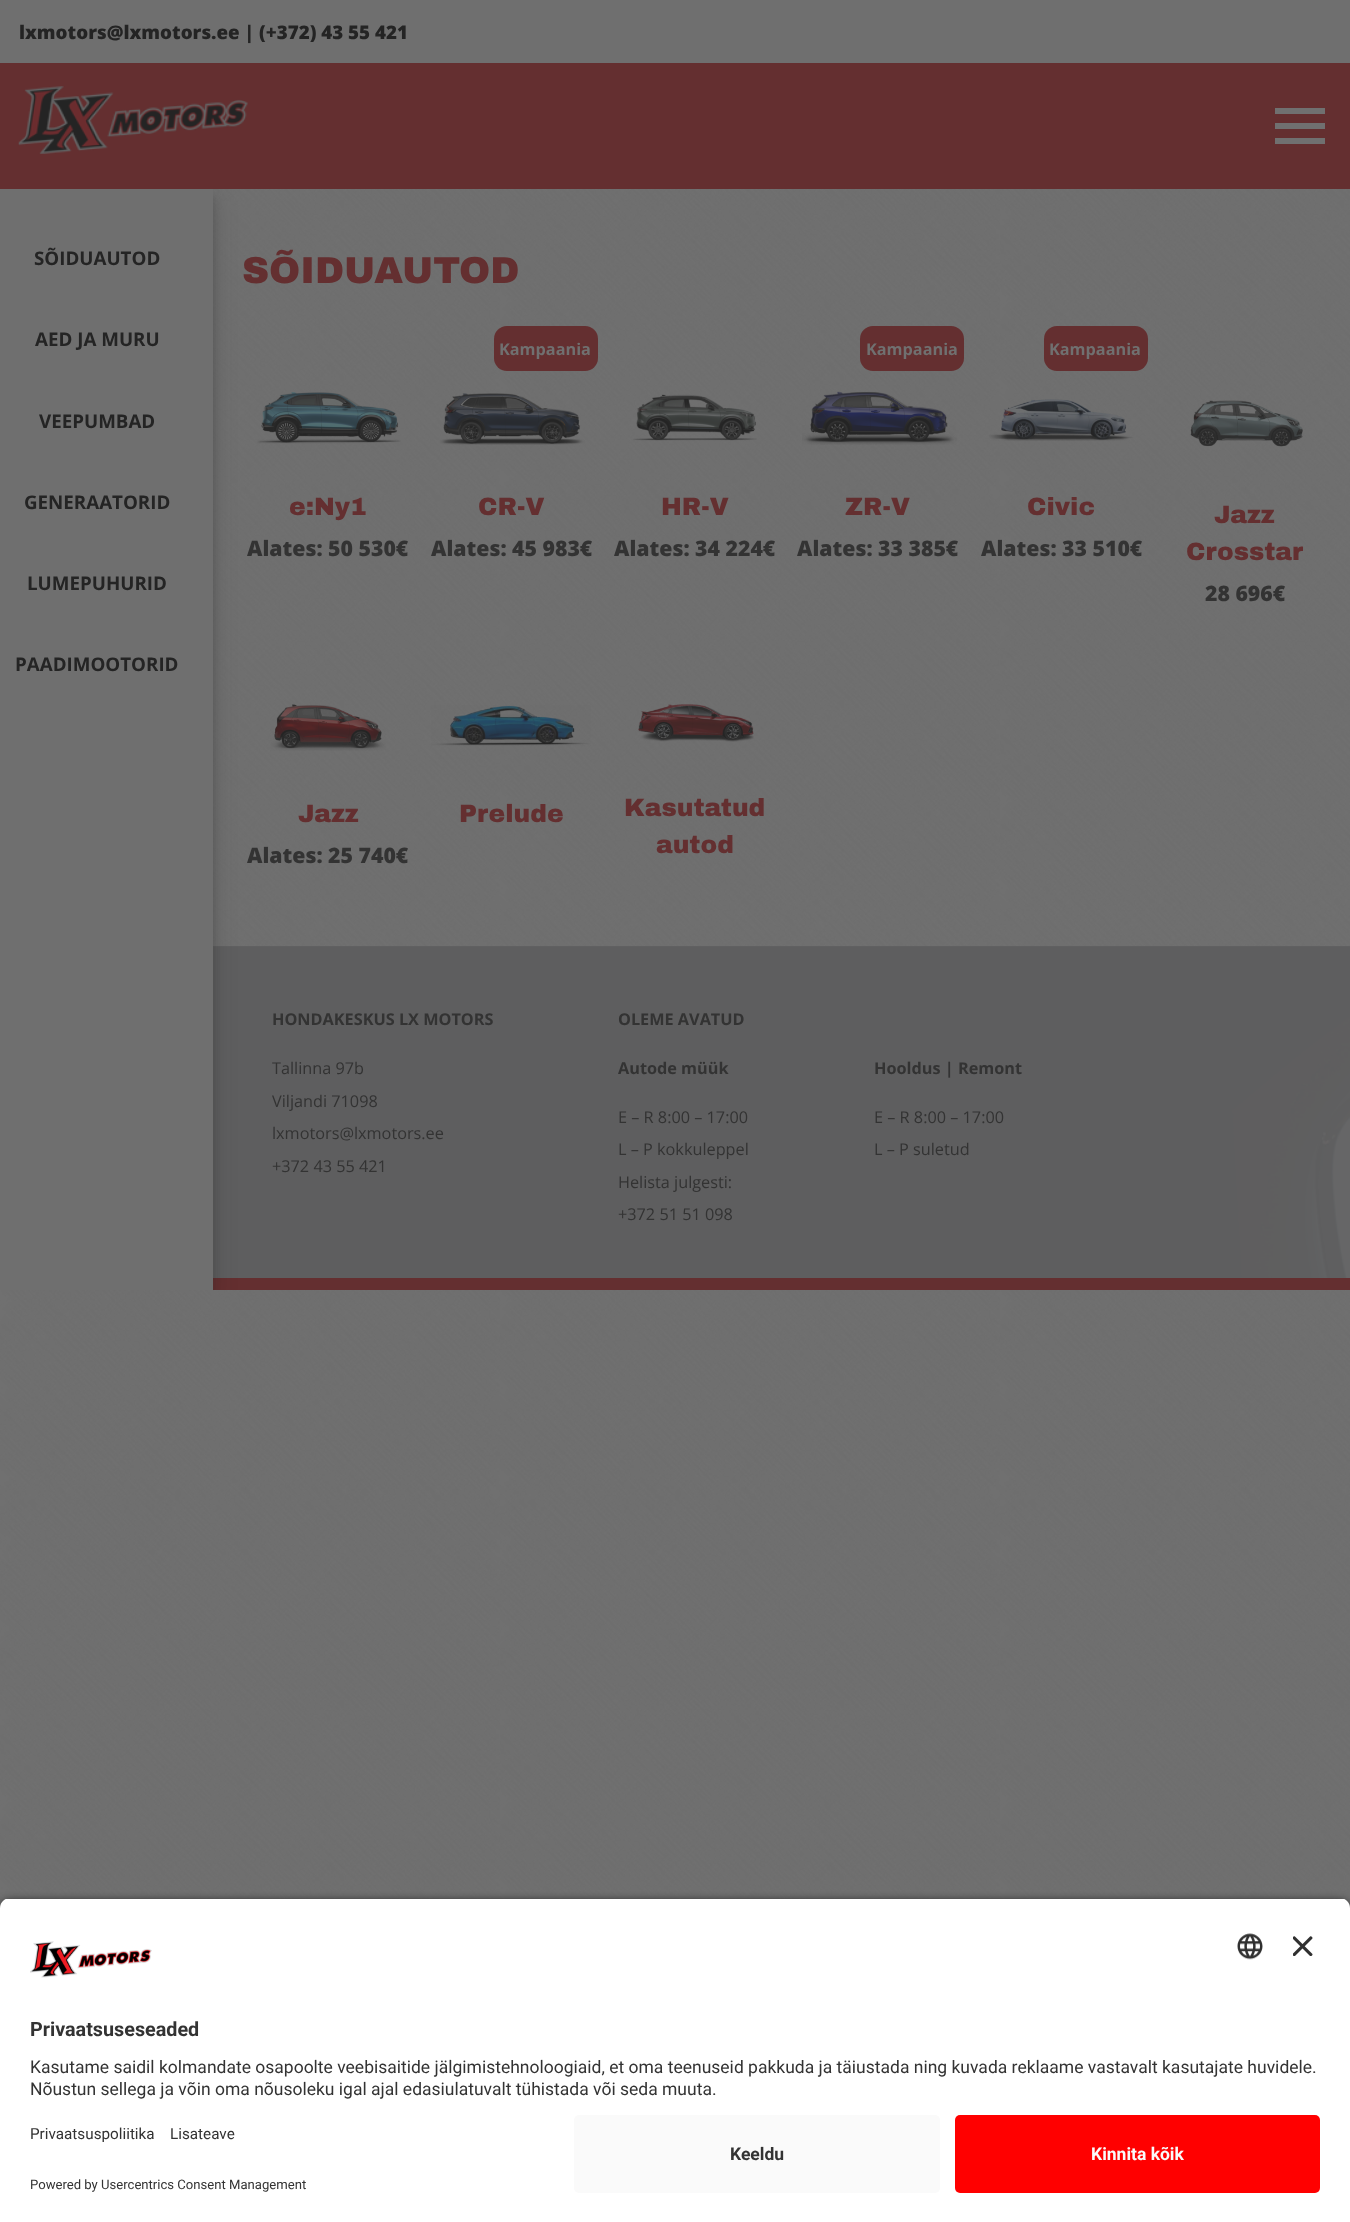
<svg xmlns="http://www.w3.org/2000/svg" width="1350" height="2222">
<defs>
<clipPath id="clip1"><rect x="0" y="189" width="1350" height="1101"/></clipPath>
<clipPath id="clip2"><path d="M10 1898h1330c5.5 0 10 4.5 10 10v197h-1350v-197c0-5.5 4.5-10 10-10z"/></clipPath>
</defs>
<rect width="100%" height="100%" fill="#fff"/>
<image x="0" y="189" width="1350" height="1719" href="media/1.png"/>
<rect width="1350" height="63" fill="#6f6f6f"/>
<text x="19" y="39" style="font-family:Open Sans;font-size:18.75px;font-weight:800;fill:#242424">lxmotors@lxmotors.ee | (+372) 43 55 421</text>
<rect y="63" width="1350" height="126" fill="#642f30"/>
<image x="18" y="86" width="230" height="68" href="media/2.png"/>
<rect x="1275" y="108" width="50" height="6" fill="#707070"/>
<rect x="1275" y="123" width="50" height="6" fill="#707070"/>
<rect x="1275" y="138" width="50" height="6" fill="#707070"/>
<image x="213" y="946" width="1137" height="332" href="media/12.png"/>
<rect x="213" y="1278" width="1137" height="12" fill="#642f30"/>
<rect x="213" y="946" width="1137" height="332" fill="#656566e6"/>
<g clip-path="url(#clip1)">
<rect x="-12" y="196" width="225" height="1102" fill="#2424243b" filter="blur(4px)"/>
<rect x="-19" y="201" width="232" height="1102" fill="#24242430" filter="blur(12.5px)"/>
</g>
<rect y="189" width="213" height="1101" fill="#6f6f6f"/>
<text x="34" y="265" style="font-family:Open Sans;font-size:18.75px;font-weight:bold;fill:#242424">SÕIDUAUTOD</text>
<text x="35" y="346" style="font-family:Open Sans;font-size:18.75px;font-weight:bold;fill:#242424">AED JA MURU</text>
<text x="39" y="428" style="font-family:Open Sans;font-size:18.75px;font-weight:bold;fill:#242424">VEEPUMBAD</text>
<text x="24" y="509" style="font-family:Open Sans;font-size:18.75px;font-weight:bold;fill:#242424">GENERAATORID</text>
<text x="27" y="590" style="font-family:Open Sans;font-size:18.75px;font-weight:bold;fill:#242424">LUMEPUHURID</text>
<text x="15" y="671" style="font-family:Open Sans;font-size:18.75px;font-weight:bold;fill:#242424">PAADIMOOTORID</text>
<text x="242" y="283" style="font-family:Archivo Black;font-size:37.5px;font-weight:900;fill:#642f30">SÕIDUAUTOD</text>
<image x="257" y="392" width="144" height="52" href="media/3.png"/>
<text x="289" y="515" style="font-family:Archivo Black;font-size:25px;font-weight:900;fill:#642f30">e:Ny1</text>
<text x="247" y="556" style="font-family:Open Sans;font-size:21.25px;font-weight:800;fill:#333">Alates: 50 530€</text>
<rect x="494" y="326" width="104" height="45" rx="13" fill="#642f30"/>
<text x="499" y="355" style="font-family:Open Sans;font-size:16.25px;font-weight:bold;fill:#707070">Kampaania</text>
<image x="440" y="393" width="145" height="52" href="media/4.png"/>
<text x="478" y="515" style="font-family:Archivo Black;font-size:25px;font-weight:900;fill:#642f30">CR-V</text>
<text x="431" y="556" style="font-family:Open Sans;font-size:21.25px;font-weight:800;fill:#333">Alates: 45 983€</text>
<image x="633" y="394" width="124" height="47" href="media/5.png"/>
<text x="661" y="515" style="font-family:Archivo Black;font-size:25px;font-weight:900;fill:#642f30">HR-V</text>
<text x="614" y="556" style="font-family:Open Sans;font-size:21.25px;font-weight:800;fill:#333">Alates: 34 224€</text>
<rect x="860" y="326" width="104" height="45" rx="13" fill="#642f30"/>
<text x="866" y="355" style="font-family:Open Sans;font-size:16.25px;font-weight:bold;fill:#707070">Kampaania</text>
<image x="802" y="391" width="155" height="54" href="media/6.png"/>
<text x="845" y="515" style="font-family:Archivo Black;font-size:25px;font-weight:900;fill:#642f30">ZR-V</text>
<text x="797" y="556" style="font-family:Open Sans;font-size:21.25px;font-weight:800;fill:#333">Alates: 33 385€</text>
<rect x="1044" y="326" width="104" height="45" rx="13" fill="#642f30"/>
<text x="1049" y="355" style="font-family:Open Sans;font-size:16.25px;font-weight:bold;fill:#707070">Kampaania</text>
<image x="989" y="399" width="145" height="42" href="media/7.png"/>
<text x="1027" y="515" style="font-family:Archivo Black;font-size:25px;font-weight:900;fill:#642f30">Civic</text>
<text x="981" y="556" style="font-family:Open Sans;font-size:21.25px;font-weight:800;fill:#333">Alates: 33 510€</text>
<image x="1190" y="400" width="113" height="47" href="media/8.png"/>
<text x="1214" y="523" style="font-family:Archivo Black;font-size:25px;font-weight:900;fill:#642f30">Jazz</text>
<text x="1186" y="560" style="font-family:Archivo Black;font-size:25px;font-weight:900;fill:#642f30">Crosstar</text>
<text x="1205" y="601" style="font-family:Open Sans;font-size:21.25px;font-weight:800;fill:#333">28 696€</text>
<image x="270" y="704" width="116" height="47" href="media/9.png"/>
<text x="298" y="822" style="font-family:Archivo Black;font-size:25px;font-weight:900;fill:#642f30">Jazz</text>
<text x="247" y="863" style="font-family:Open Sans;font-size:21.25px;font-weight:800;fill:#333">Alates: 25 740€</text>
<image x="431" y="705" width="160" height="41" href="media/10.png"/>
<text x="459" y="822" style="font-family:Archivo Black;font-size:25px;font-weight:900;fill:#642f30">Prelude</text>
<image x="638" y="704" width="116" height="38" href="media/11.png"/>
<text x="624" y="816" style="font-family:Archivo Black;font-size:25px;font-weight:900;fill:#642f30">Kasutatud</text>
<text x="656" y="853" style="font-family:Archivo Black;font-size:25px;font-weight:900;fill:#642f30">autod</text>
<text x="272" y="1025" style="font-family:Open Sans;font-size:16.25px;font-weight:bold;fill:#333">HONDAKESKUS LX MOTORS</text>
<text x="272" y="1074" style="font-family:Open Sans;font-size:16.25px;fill:#333">Tallinna 97b</text>
<text x="272" y="1107" style="font-family:Open Sans;font-size:16.25px;fill:#333">Viljandi 71098</text>
<text x="272" y="1139" style="font-family:Open Sans;font-size:16.25px;fill:#333">lxmotors@lxmotors.ee</text>
<text x="272" y="1172" style="font-family:Open Sans;font-size:16.25px;fill:#333">+372 43 55 421</text>
<text x="618" y="1025" style="font-family:Open Sans;font-size:16.25px;font-weight:bold;fill:#333">OLEME AVATUD</text>
<text x="618" y="1074" style="font-family:Open Sans;font-size:16.25px;font-weight:bold;fill:#333">Autode müük</text>
<text x="618" y="1123" style="font-family:Open Sans;font-size:16.25px;fill:#333">E – R 8:00 – 17:00</text>
<text x="618" y="1155" style="font-family:Open Sans;font-size:16.25px;fill:#333">L – P kokkuleppel</text>
<text x="618" y="1188" style="font-family:Open Sans;font-size:16.25px;fill:#333">Helista julgesti:</text>
<text x="618" y="1220" style="font-family:Open Sans;font-size:16.25px;fill:#333">+372 51 51 098</text>
<text x="874" y="1074" style="font-family:Open Sans;font-size:16.25px;font-weight:bold;fill:#333">Hooldus | Remont</text>
<text x="874" y="1123" style="font-family:Open Sans;font-size:16.25px;fill:#333">E – R 8:00 – 17:00</text>
<text x="874" y="1155" style="font-family:Open Sans;font-size:16.25px;fill:#333">L – P suletud</text>
<rect y="1901" width="1350" height="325" rx="10" fill="#000000cc" filter="blur(4.5px)"/>
<g clip-path="url(#clip2)">
<rect y="1899" width="1350" height="206" fill="#fff"/>
</g>
<image x="30" y="1941" width="122" height="37" href="media/13.png"/>
<image x="1237" y="1933" width="26" height="27" href="media/14.png"/>
<image x="1293" y="1936" width="20" height="20" href="media/15.png"/>
<text x="30" y="2036" style="font-family:Roboto;font-size:19.75px;font-weight:bold;fill:#333">Privaatsuseseaded</text>
<text x="30" y="2073" style="font-family:Roboto;font-size:17.5px;fill:#333">Kasutame saidil kolmandate osapoolte veebisaitide jälgimistehnoloogiaid, et oma teenuseid pakkuda ja täiustada ning kuvada reklaame vastavalt kasutajate huvidele.</text>
<text x="30" y="2095" style="font-family:Roboto;font-size:17.5px;fill:#333">Nõustun sellega ja võin oma nõusoleku igal ajal edasiulatuvalt tühistada või seda muuta.</text>
<rect y="2105" width="1350" height="117" fill="#fff"/>
<text x="30" y="2139" style="font-family:Roboto;font-size:15.25px;fill:#333">Privaatsuspoliitika</text>
<text x="170" y="2139" style="font-family:Roboto;font-size:15.25px;fill:#333">Lisateave</text>
<text x="30" y="2189" style="font-family:Roboto;font-size:13.1px;fill:#333">Powered by Usercentrics Consent Management</text>
<rect x="574" y="2115" width="366" height="78" rx="5" fill="#fafafa"/>
<text x="730" y="2160" style="font-family:Roboto;font-size:17.5px;font-weight:bold;fill:#333">Keeldu</text>
<rect x="955" y="2115" width="365" height="78" rx="5" fill="#f00"/>
<text x="1091" y="2160" style="font-family:Roboto;font-size:17.5px;font-weight:bold;fill:#fafafa">Kinnita kõik</text>
</svg>
